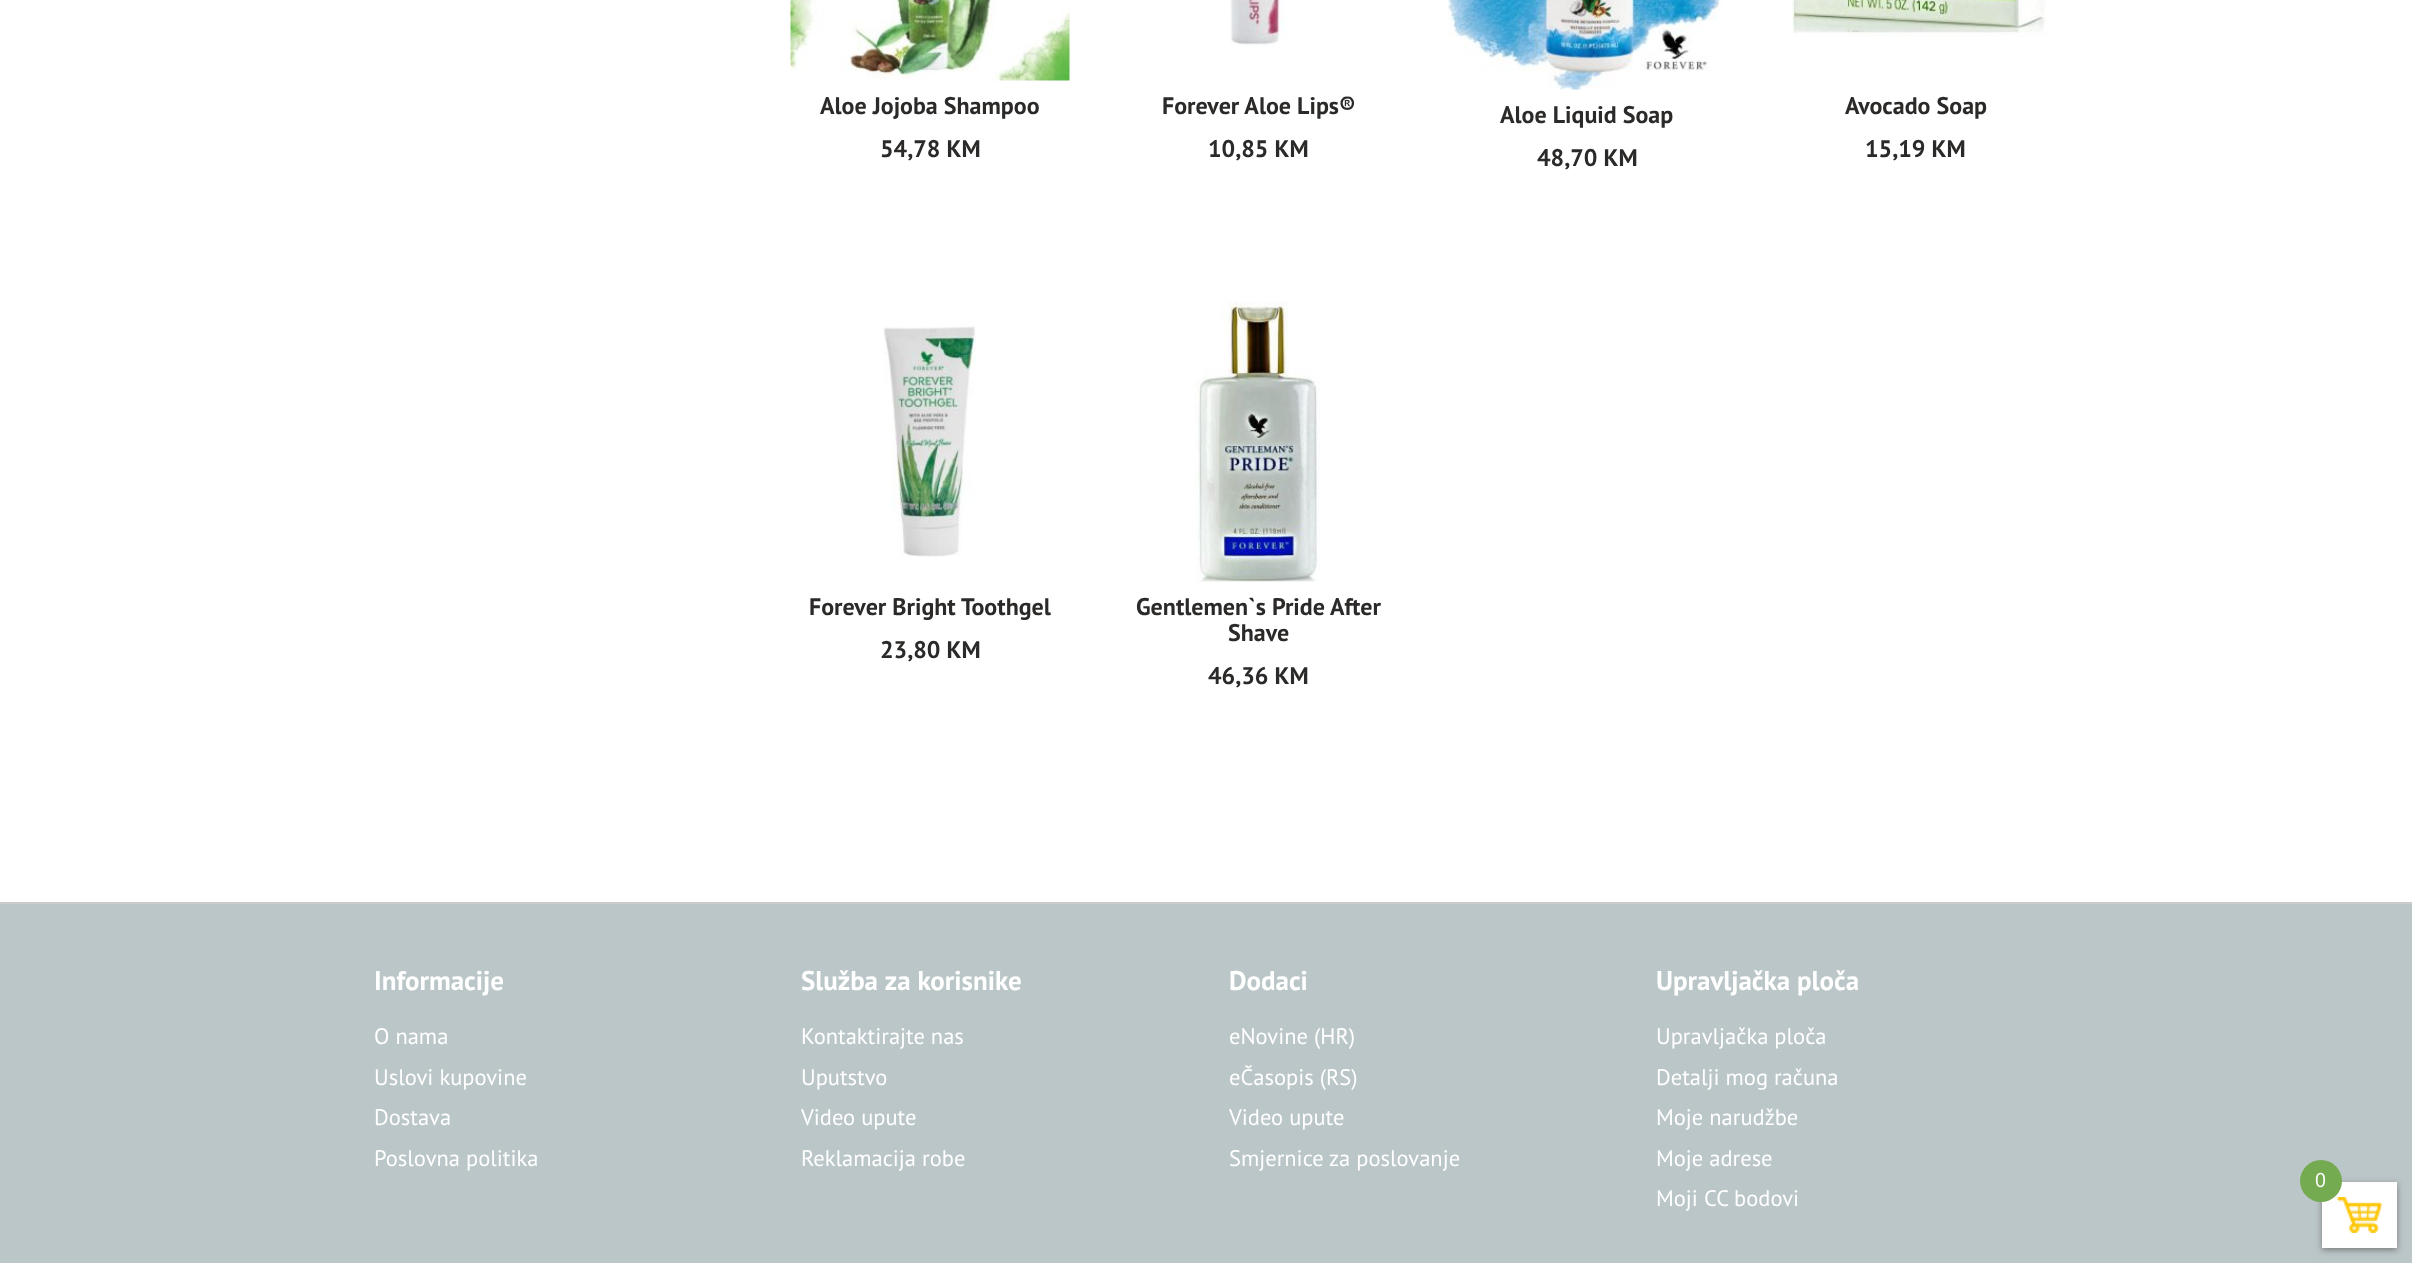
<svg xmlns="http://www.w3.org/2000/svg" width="2412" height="1263">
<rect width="100%" height="100%" fill="#fff"/>
<image x="790" y="0" width="280" height="81" href="media/1.png"/>
<text x="820" y="114" style="font-family:PT Sans;font-size:24px;font-weight:bold;fill:#2c2a29">Aloe Jojoba Shampoo</text>
<text x="880" y="157" style="font-family:PT Sans;font-size:24px;font-weight:bold;fill:#2c2a29">54,78 KM</text>
<image x="1230" y="0" width="57" height="46" href="media/2.png"/>
<text x="1162" y="114" style="font-family:PT Sans;font-size:24px;font-weight:bold;fill:#2c2a29">Forever Aloe Lips®</text>
<text x="1208" y="157" style="font-family:PT Sans;font-size:24px;font-weight:bold;fill:#2c2a29">10,85 KM</text>
<image x="1447" y="0" width="275" height="90" href="media/3.png"/>
<text x="1500" y="123" style="font-family:PT Sans;font-size:24px;font-weight:bold;fill:#2c2a29">Aloe Liquid Soap</text>
<text x="1537" y="166" style="font-family:PT Sans;font-size:24px;font-weight:bold;fill:#2c2a29">48,70 KM</text>
<image x="1792" y="0" width="255" height="37" href="media/4.png"/>
<text x="1845" y="114" style="font-family:PT Sans;font-size:24px;font-weight:bold;fill:#2c2a29">Avocado Soap</text>
<text x="1865" y="157" style="font-family:PT Sans;font-size:24px;font-weight:bold;fill:#2c2a29">15,19 KM</text>
<image x="883" y="326" width="93" height="231" href="media/5.png"/>
<text x="809" y="615" style="font-family:PT Sans;font-size:24px;font-weight:bold;fill:#2c2a29">Forever Bright Toothgel</text>
<text x="880" y="658" style="font-family:PT Sans;font-size:24px;font-weight:bold;fill:#2c2a29">23,80 KM</text>
<image x="1195" y="301" width="125" height="281" href="media/6.png"/>
<text x="1136" y="615" style="font-family:PT Sans;font-size:24px;font-weight:bold;fill:#2c2a29">Gentlemen`s Pride After</text>
<text x="1228" y="641" style="font-family:PT Sans;font-size:24px;font-weight:bold;fill:#2c2a29">Shave</text>
<text x="1208" y="684" style="font-family:PT Sans;font-size:24px;font-weight:bold;fill:#2c2a29">46,36 KM</text>
<rect y="904" width="2412" height="359" fill="#bbc6c8"/>
<rect y="902" width="2412" height="2" fill="#ccc"/>
<text x="374" y="990" style="font-family:PT Sans;font-size:27px;font-weight:bold;fill:#fff">Informacije</text>
<text x="374" y="1044" style="font-family:PT Sans;font-size:22.5px;fill:#fff">O nama</text>
<text x="374" y="1085" style="font-family:PT Sans;font-size:22.5px;fill:#fff">Uslovi kupovine</text>
<text x="374" y="1125" style="font-family:PT Sans;font-size:22.5px;fill:#fff">Dostava</text>
<text x="374" y="1166" style="font-family:PT Sans;font-size:22.5px;fill:#fff">Poslovna politika</text>
<text x="801" y="990" style="font-family:PT Sans;font-size:27px;font-weight:bold;fill:#fff">Služba za korisnike</text>
<text x="801" y="1044" style="font-family:PT Sans;font-size:22.5px;fill:#fff">Kontaktirajte nas</text>
<text x="801" y="1085" style="font-family:PT Sans;font-size:22.5px;fill:#fff">Uputstvo</text>
<text x="801" y="1125" style="font-family:PT Sans;font-size:22.5px;fill:#fff">Video upute</text>
<text x="801" y="1166" style="font-family:PT Sans;font-size:22.5px;fill:#fff">Reklamacija robe</text>
<text x="1229" y="990" style="font-family:PT Sans;font-size:27px;font-weight:bold;fill:#fff">Dodaci</text>
<text x="1229" y="1044" style="font-family:PT Sans;font-size:22.5px;fill:#fff">eNovine (HR)</text>
<text x="1229" y="1085" style="font-family:PT Sans;font-size:22.5px;fill:#fff">eČasopis (RS)</text>
<text x="1229" y="1125" style="font-family:PT Sans;font-size:22.5px;fill:#fff">Video upute</text>
<text x="1229" y="1166" style="font-family:PT Sans;font-size:22.5px;fill:#fff">Smjernice za poslovanje</text>
<text x="1656" y="990" style="font-family:PT Sans;font-size:27px;font-weight:bold;fill:#fff">Upravljačka ploča</text>
<text x="1656" y="1044" style="font-family:PT Sans;font-size:22.5px;fill:#fff">Upravljačka ploča</text>
<text x="1656" y="1085" style="font-family:PT Sans;font-size:22.5px;fill:#fff">Detalji mog računa</text>
<text x="1656" y="1125" style="font-family:PT Sans;font-size:22.5px;fill:#fff">Moje narudžbe</text>
<text x="1656" y="1166" style="font-family:PT Sans;font-size:22.5px;fill:#fff">Moje adrese</text>
<text x="1656" y="1206" style="font-family:PT Sans;font-size:22.5px;fill:#fff">Moji CC bodovi</text>
<rect x="2322" y="1184" width="75" height="66" fill="#7a7a7a" filter="blur(3px)"/>
<rect x="2322" y="1182" width="75" height="66" fill="#fff"/>
<image x="2337" y="1197" width="45" height="36" href="media/7.png"/>
<circle cx="2321" cy="1181" r="21" fill="#74aa50"/>
<text x="2315" y="1187" style="font-family:PT Sans;font-size:20px;fill:#fff">0</text>
</svg>
